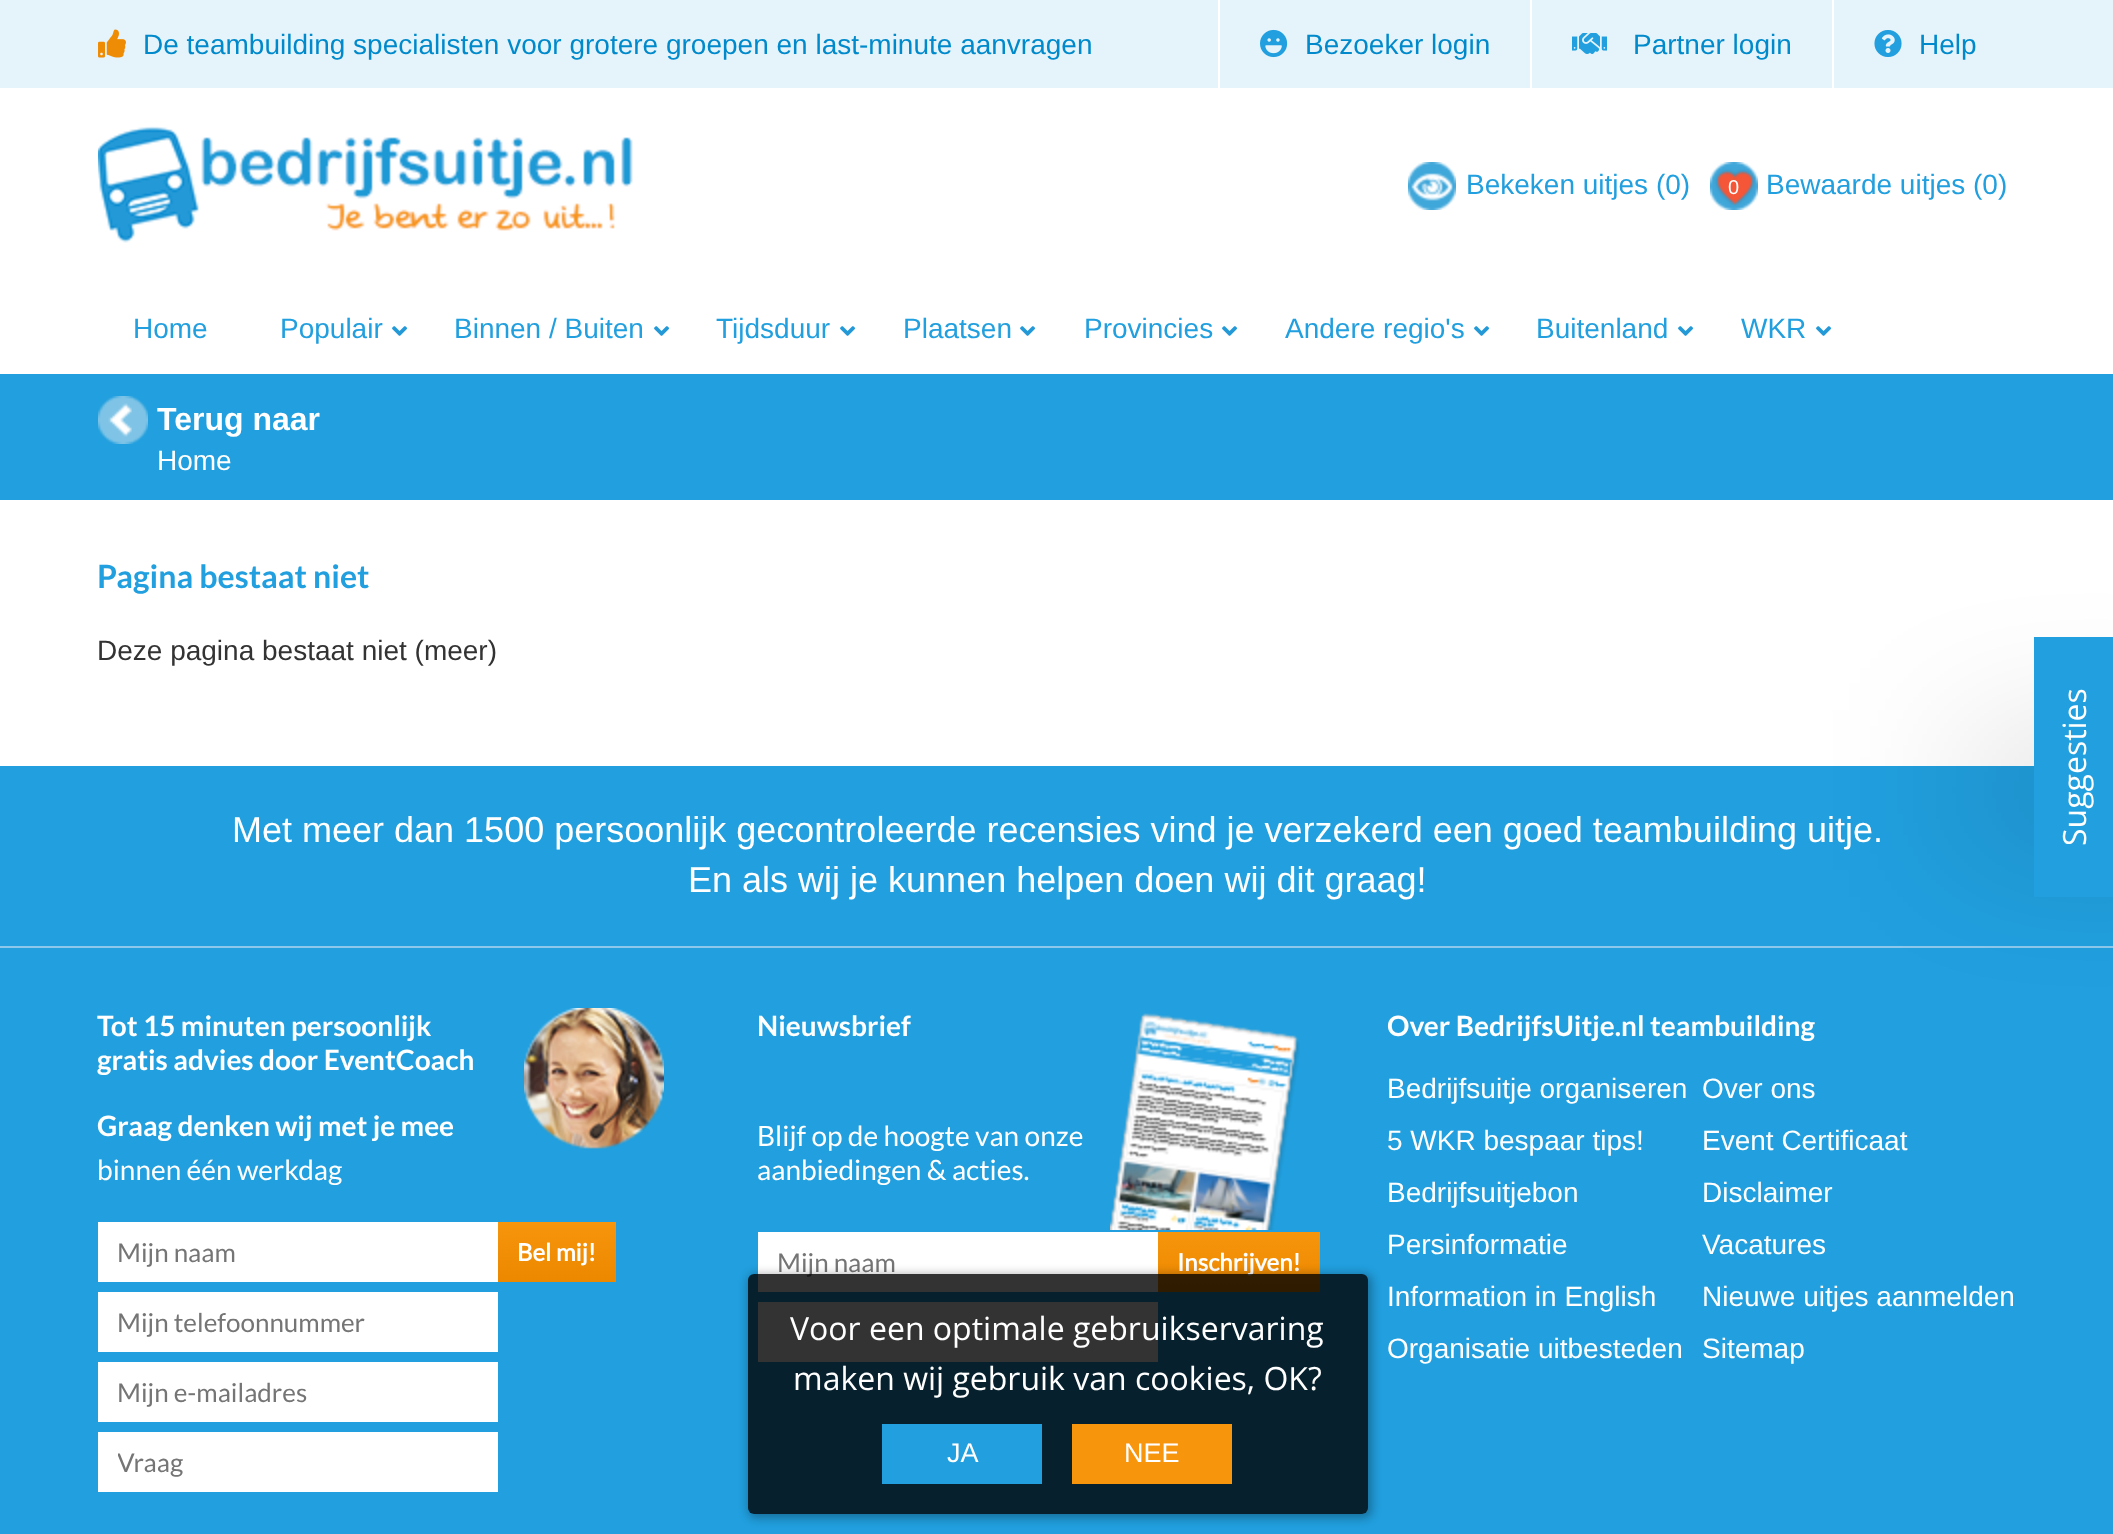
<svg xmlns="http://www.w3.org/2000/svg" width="2113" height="1534">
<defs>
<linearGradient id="g1" gradientUnits="userSpaceOnUse" x1="557" y1="1222" x2="557" y2="1282"><stop offset="0" stop-color="#f7950d"/><stop offset="1" stop-color="#eb8800"/></linearGradient>
<clipPath id="clip1"><rect x="118" y="1446" width="360" height="32"/></clipPath>
<linearGradient id="g2" gradientUnits="userSpaceOnUse" x1="1239" y1="1232" x2="1239" y2="1292"><stop offset="0" stop-color="#f7950d"/><stop offset="1" stop-color="#eb8800"/></linearGradient>
<clipPath id="clip2"><path d="M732 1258h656v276h-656zm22 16h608c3.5 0 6 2.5 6 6v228c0 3.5-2.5 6-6 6h-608c-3.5 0-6-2.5-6-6v-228c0-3.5 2.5-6 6-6z" clip-rule="evenodd"/></clipPath>
</defs>
<rect width="100%" height="100%" fill="#fff"/>
<rect width="2113" height="88" fill="#e5f3fa"/>
<image x="98" y="29" width="28" height="29" href="media/1.png"/>
<text x="143" y="54" style="font-family:Liberation Sans;font-size:28px;fill:#008acb">De teambuilding specialisten voor grotere groepen en last-minute aanvragen</text>
<rect x="1218" width="2" height="88" fill="#fff"/>
<image x="1260" y="29" width="28" height="29" href="media/2.png"/>
<text x="1305" y="54" style="font-family:Liberation Sans;font-size:28px;fill:#008acb">Bezoeker login</text>
<rect x="1530" width="2" height="88" fill="#fff"/>
<image x="1572" y="33" width="35" height="21" href="media/3.png"/>
<text x="1633" y="54" style="font-family:Liberation Sans;font-size:28px;fill:#008acb">Partner login</text>
<rect x="1832" width="2" height="88" fill="#fff"/>
<image x="1874" y="30" width="28" height="27" href="media/4.png"/>
<text x="1919" y="54" style="font-family:Liberation Sans;font-size:28px;fill:#008acb">Help</text>
<image x="98" y="126" width="535" height="117" href="media/5.png"/>
<image x="1408" y="162" width="48" height="48" href="media/6.png"/>
<text x="1466" y="194" style="font-family:Liberation Sans;font-size:28px;fill:#219fde">Bekeken uitjes (0)</text>
<image x="1710" y="162" width="48" height="48" href="media/7.png"/>
<text x="1728" y="194" style="font-family:Liberation Sans;font-size:20px;fill:#fff">0</text>
<text x="1766" y="194" style="font-family:Liberation Sans;font-size:28px;fill:#219fde">Bewaarde uitjes (0)</text>
<text x="133" y="338" style="font-family:Liberation Sans;font-size:28px;fill:#219fde">Home</text>
<text x="280" y="338" style="font-family:Liberation Sans;font-size:28px;fill:#219fde">Populair</text>
<image x="392" y="326" width="15" height="10" href="media/8.png"/>
<text x="454" y="338" style="font-family:Liberation Sans;font-size:28px;fill:#219fde">Binnen / Buiten</text>
<image x="654" y="326" width="15" height="10" href="media/8.png"/>
<text x="716" y="338" style="font-family:Liberation Sans;font-size:28px;fill:#219fde">Tijdsduur</text>
<image x="840" y="326" width="15" height="10" href="media/8.png"/>
<text x="903" y="338" style="font-family:Liberation Sans;font-size:28px;fill:#219fde">Plaatsen</text>
<image x="1020" y="326" width="15" height="10" href="media/8.png"/>
<text x="1084" y="338" style="font-family:Liberation Sans;font-size:28px;fill:#219fde">Provincies</text>
<image x="1222" y="326" width="15" height="10" href="media/8.png"/>
<text x="1285" y="338" style="font-family:Liberation Sans;font-size:28px;fill:#219fde">Andere regio's</text>
<image x="1474" y="326" width="15" height="10" href="media/8.png"/>
<text x="1536" y="338" style="font-family:Liberation Sans;font-size:28px;fill:#219fde">Buitenland</text>
<image x="1678" y="326" width="15" height="10" href="media/8.png"/>
<text x="1741" y="338" style="font-family:Liberation Sans;font-size:28px;fill:#219fde">WKR</text>
<image x="1816" y="326" width="15" height="10" href="media/8.png"/>
<rect y="374" width="2113" height="126" fill="#219fde"/>
<image x="98" y="396" width="50" height="48" href="media/9.png"/>
<text x="157" y="430" style="font-family:Liberation Sans;font-size:32px;font-weight:bold;fill:#fff">Terug naar</text>
<text x="157" y="470" style="font-family:Liberation Sans;font-size:28px;fill:#fff">Home</text>
<text x="97" y="588" style="font-family:Lato;font-size:32px;font-weight:bold;fill:#219fde">Pagina bestaat niet</text>
<text x="97" y="660" style="font-family:Liberation Sans;font-size:28px;fill:#333">Deze pagina bestaat niet (meer)</text>
<rect y="766" width="2113" height="180" fill="#219fde"/>
<rect y="946" width="2113" height="2" fill="#8dc8ea"/>
<rect y="948" width="2113" height="586" fill="#219fde"/>
<rect x="1966" y="750" width="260" height="80" fill="#00000030" filter="blur(76px)"/>
<rect x="2034" y="637" width="79" height="260" fill="#219fde"/>
<text x="2086" y="846" transform="rotate(-90 2086 846)" style="font-family:Open Sans;font-size:32px;fill:#fff">Suggesties</text>
<text x="232" y="842" style="font-family:Liberation Sans;font-size:36px;fill:#fff">Met meer dan 1500 persoonlijk gecontroleerde recensies vind je verzekerd een goed teambuilding uitje.</text>
<text x="688" y="892" style="font-family:Liberation Sans;font-size:36px;fill:#fff">En als wij je kunnen helpen doen wij dit graag!</text>
<image x="524" y="1008" width="140" height="141" href="media/10.png"/>
<text x="97" y="1036" style="font-family:Lato;font-size:28px;font-weight:bold;fill:#fff">Tot 15 minuten persoonlijk</text>
<text x="97" y="1070" style="font-family:Lato;font-size:28px;font-weight:bold;fill:#fff">gratis advies door EventCoach</text>
<text x="97" y="1136" style="font-family:Lato;font-size:28px;font-weight:bold;fill:#fff">Graag denken wij met je mee</text>
<text x="97" y="1180" style="font-family:Lato;font-size:28px;fill:#fff">binnen één werkdag</text>
<rect x="98" y="1222" width="400" height="60" fill="#fff"/>
<text x="117" y="1262" style="font-family:Lato;font-size:26px;fill:#757575">Mijn naam</text>
<rect x="498" y="1222" width="118" height="60" fill="url(#g1)"/>
<text x="517" y="1261" style="font-family:'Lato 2';font-size:24px;font-weight:bold;fill:#fff">Bel mij!</text>
<rect x="98" y="1292" width="400" height="60" fill="#fff"/>
<text x="117" y="1332" style="font-family:Lato;font-size:26px;fill:#757575">Mijn telefoonnummer</text>
<rect x="98" y="1362" width="400" height="60" fill="#fff"/>
<text x="117" y="1402" style="font-family:Lato;font-size:26px;fill:#757575">Mijn e-mailadres</text>
<rect x="98" y="1432" width="400" height="60" fill="#fff"/>
<g clip-path="url(#clip1)">
<text x="117" y="1472" style="font-family:Lato;font-size:26px;fill:#757575">Vraag</text>
</g>
<image x="1110" y="1013" width="190" height="217" href="media/11.png"/>
<text x="757" y="1036" style="font-family:Lato;font-size:28px;font-weight:bold;fill:#fff">Nieuwsbrief</text>
<text x="757" y="1146" style="font-family:Lato;font-size:28px;fill:#fff">Blijf op de hoogte van onze</text>
<text x="757" y="1180" style="font-family:Lato;font-size:28px;fill:#fff">aanbiedingen &amp; acties.</text>
<rect x="758" y="1232" width="400" height="60" fill="#fff"/>
<text x="777" y="1272" style="font-family:Lato;font-size:26px;fill:#757575">Mijn naam</text>
<rect x="1158" y="1232" width="162" height="60" fill="url(#g2)"/>
<text x="1177" y="1271" style="font-family:'Lato 2';font-size:24px;font-weight:bold;fill:#fff">Inschrijven!</text>
<rect x="758" y="1302" width="400" height="60" fill="#fff"/>
<text x="1387" y="1036" style="font-family:Lato;font-size:28px;font-weight:bold;fill:#fff">Over BedrijfsUitje.nl teambuilding</text>
<text x="1387" y="1098" style="font-family:Liberation Sans;font-size:28px;fill:#fff">Bedrijfsuitje organiseren</text>
<text x="1387" y="1150" style="font-family:Liberation Sans;font-size:28px;fill:#fff">5 WKR bespaar tips!</text>
<text x="1387" y="1202" style="font-family:Liberation Sans;font-size:28px;fill:#fff">Bedrijfsuitjebon</text>
<text x="1387" y="1254" style="font-family:Liberation Sans;font-size:28px;fill:#fff">Persinformatie</text>
<text x="1387" y="1306" style="font-family:Liberation Sans;font-size:28px;fill:#fff">Information in English</text>
<text x="1387" y="1358" style="font-family:Liberation Sans;font-size:28px;fill:#fff">Organisatie uitbesteden</text>
<text x="1702" y="1098" style="font-family:Liberation Sans;font-size:28px;fill:#fff">Over ons</text>
<text x="1702" y="1150" style="font-family:Liberation Sans;font-size:28px;fill:#fff">Event Certificaat</text>
<text x="1702" y="1202" style="font-family:Liberation Sans;font-size:28px;fill:#fff">Disclaimer</text>
<text x="1702" y="1254" style="font-family:Liberation Sans;font-size:28px;fill:#fff">Vacatures</text>
<text x="1702" y="1306" style="font-family:Liberation Sans;font-size:28px;fill:#fff">Nieuwe uitjes aanmelden</text>
<text x="1702" y="1358" style="font-family:Liberation Sans;font-size:28px;fill:#fff">Sitemap</text>
<g clip-path="url(#clip2)">
<rect x="748" y="1274" width="624" height="244" rx="8" fill="#0000004d" filter="blur(5px)"/>
</g>
<rect x="748" y="1274" width="620" height="240" rx="6" fill="#000000cc"/>
<text x="790" y="1340" style="font-family:Open Sans;font-size:32px;fill:#fff">Voor een optimale gebruikservaring</text>
<text x="793" y="1390" style="font-family:Open Sans;font-size:32px;fill:#fff">maken wij gebruik van cookies, OK?</text>
<rect x="882" y="1424" width="160" height="60" fill="#219fde"/>
<text x="947" y="1462" style="font-family:Liberation Sans;font-size:27px;fill:#fff">JA</text>
<rect x="1072" y="1424" width="160" height="60" fill="#f7950d"/>
<text x="1124" y="1462" style="font-family:Liberation Sans;font-size:27px;fill:#fff">NEE</text>
</svg>
